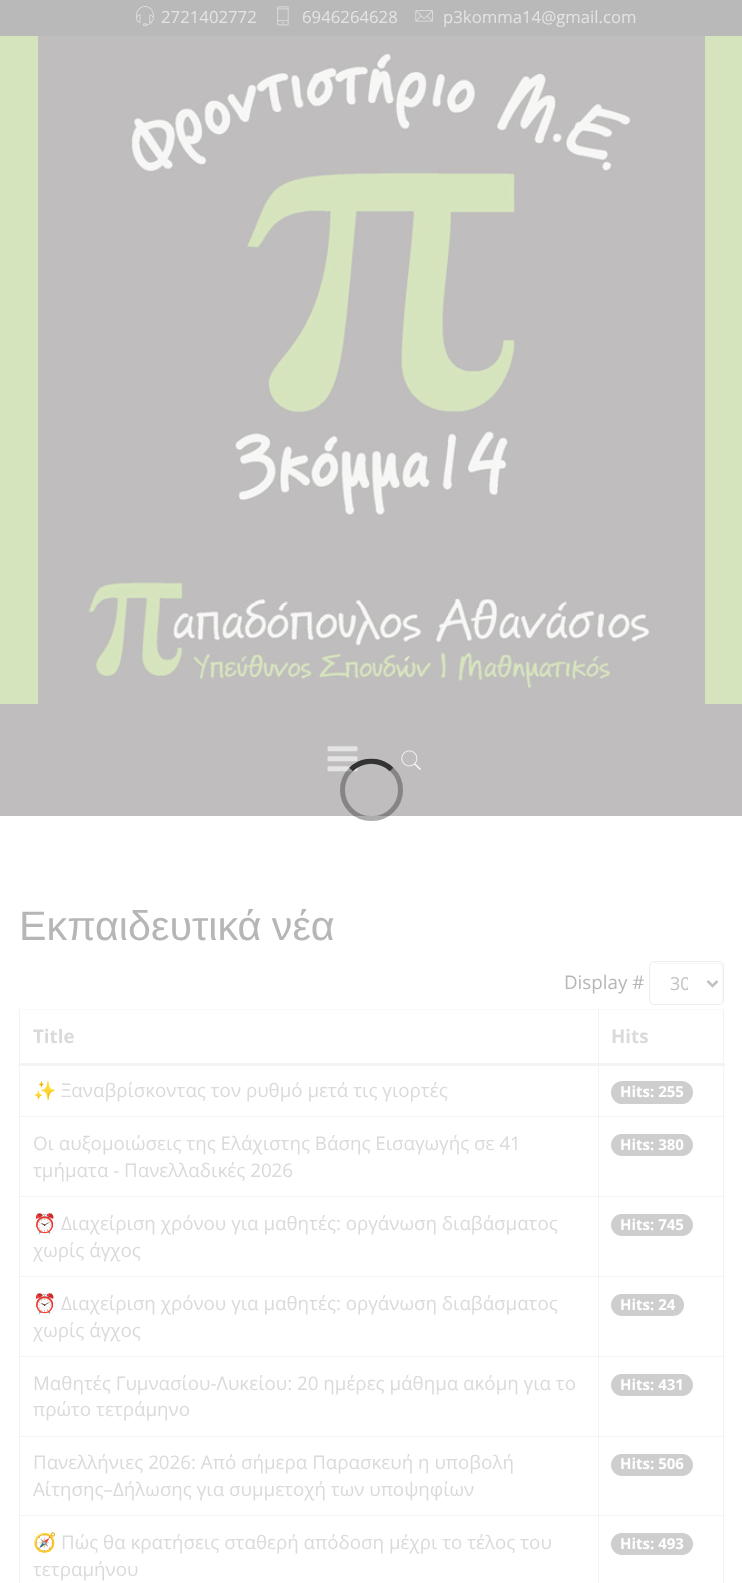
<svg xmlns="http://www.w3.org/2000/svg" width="742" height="1583">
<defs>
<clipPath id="clip1"><rect x="670" y="970" width="18" height="26"/></clipPath>
</defs>
<rect width="100%" height="100%" fill="#fff"/>
<rect width="742" height="36" fill="#b9b9b9"/>
<image x="136" y="6" width="18" height="20" href="media/1.png"/>
<text x="161" y="23" style="font-family:Open Sans;font-size:16.75px;fill:#e4e4e4">2721402772</text>
<image x="277" y="6" width="12" height="20" href="media/2.png"/>
<text x="302" y="23" style="font-family:Open Sans;font-size:16.75px;fill:#e4e4e4">6946264628</text>
<image x="415" y="10" width="18" height="12" href="media/3.png"/>
<text x="443" y="23" style="font-family:Open Sans;font-size:16.75px;fill:#e4e4e4">p3komma14@gmail.com</text>
<rect y="36" width="742" height="668" fill="#d6e4be"/>
<image x="38" y="36" width="667" height="668" href="media/4.png"/>
<rect y="704" width="742" height="112" fill="#bfbdbd"/>
<image x="327" y="746" width="31" height="26" href="media/5.png"/>
<image x="401" y="750" width="20" height="20" href="media/6.png"/>
<rect x="342.5" y="761.5" width="58" height="57" rx="28.5" fill="none" stroke="#33333366" stroke-width="5"/>
<path d="M351 769.5c11-11 29.5-11 40.5 0" fill="none" stroke="#333" stroke-width="5"/>
<text x="19" y="940" word-spacing="-1" style="font-family:Liberation Sans;font-size:41.25px;fill:#b6b6b6">Εκπαιδευτικά νέα</text>
<text x="564" y="989" style="font-family:Open Sans;font-size:18.75px;fill:#b6b6b6">Display #</text>
<path d="M654 964h65c4 0 3 7 3 10v29c0-1 1-2 1-3v-33c0-2-2-4-4-4h-65c-2 0-4 2-4 4v1c0-3 2-4 4-4z" fill="#f8f8f8"/>
<rect x="649.5" y="961.5" width="74" height="43" rx="4.5" fill="none" stroke="#ededed"/>
<path d="M707.5 981l5 5l5-5" fill="none" stroke="#c2c2c2" stroke-width="2.5"/>
<g clip-path="url(#clip1)">
<text x="670" y="990" style="font-family:Open Sans;font-size:18px;fill:#c2c2c2">30</text>
</g>
<rect x="19" y="1009" width="705" height="1" fill="#fafafa"/>
<text x="33" y="1043" style="font-family:Open Sans;font-size:18.75px;font-weight:bold;fill:#dadada">Title</text>
<rect x="598" y="1116" width="126" height="1" fill="#f3f3f3"/>
<rect x="598" y="1196" width="126" height="1" fill="#f3f3f3"/>
<rect x="598" y="1276" width="126" height="1" fill="#f3f3f3"/>
<rect x="598" y="1356" width="126" height="1" fill="#f3f3f3"/>
<rect x="598" y="1436" width="126" height="1" fill="#f3f3f3"/>
<rect x="598" y="1515" width="126" height="1" fill="#f3f3f3"/>
<rect x="598" y="1515" width="1" height="68" fill="#f3f3f3"/>
<rect x="19" y="1515" width="580" height="1" fill="#f3f3f3"/>
<rect x="598" y="1436" width="1" height="80" fill="#f3f3f3"/>
<rect x="19" y="1436" width="580" height="1" fill="#f3f3f3"/>
<rect x="598" y="1356" width="1" height="82" fill="#f3f3f3"/>
<rect x="19" y="1356" width="580" height="1" fill="#f3f3f3"/>
<rect x="598" y="1276" width="1" height="82" fill="#f3f3f3"/>
<rect x="19" y="1276" width="580" height="1" fill="#f3f3f3"/>
<rect x="598" y="1196" width="1" height="82" fill="#f3f3f3"/>
<rect x="19" y="1196" width="580" height="1" fill="#f3f3f3"/>
<rect x="598" y="1116" width="1" height="82" fill="#f3f3f3"/>
<rect x="19" y="1116" width="580" height="1" fill="#f3f3f3"/>
<rect x="598" y="1009" width="1" height="109" fill="#f3f3f3"/>
<rect x="19" y="1515" width="1" height="68" fill="#f3f3f3"/>
<rect x="19" y="1436" width="1" height="80" fill="#f3f3f3"/>
<rect x="19" y="1356" width="1" height="82" fill="#f3f3f3"/>
<rect x="19" y="1276" width="1" height="82" fill="#f3f3f3"/>
<rect x="19" y="1196" width="1" height="82" fill="#f3f3f3"/>
<rect x="19" y="1009" width="1" height="189" fill="#f3f3f3"/>
<rect x="723" y="1515" width="1" height="68" fill="#f3f3f3"/>
<rect x="723" y="1436" width="1" height="80" fill="#f3f3f3"/>
<rect x="723" y="1356" width="1" height="82" fill="#f3f3f3"/>
<rect x="723" y="1276" width="1" height="82" fill="#f3f3f3"/>
<rect x="723" y="1196" width="1" height="82" fill="#f3f3f3"/>
<rect x="723" y="1009" width="1" height="189" fill="#f3f3f3"/>
<rect x="19" y="1063" width="706" height="3" fill="#f3f3f3"/>
<text x="611" y="1043" style="font-family:Open Sans;font-size:18.75px;font-weight:bold;fill:#dadada">Hits</text>
<text x="33" y="1097" style="font-family:Noto Color Emoji;font-size:18.75px;fill:#dadada">✨</text>
<text x="61" y="1097" style="font-family:Open Sans;font-size:18.75px;fill:#dadada">Ξαναβρίσκοντας τον ρυθμό μετά τις γιορτές</text>
<rect x="611" y="1081" width="82" height="23" rx="11.5" fill="#cecece"/>
<text x="620" y="1097" style="font-family:Open Sans;font-size:15px;font-weight:bold;fill:#fff">Hits: 255</text>
<text x="33" y="1150" style="font-family:Open Sans;font-size:18.75px;fill:#dadada">Οι αυξομοιώσεις της Ελάχιστης Βάσης Εισαγωγής σε 41</text>
<text x="33" y="1177" style="font-family:Open Sans;font-size:18.75px;fill:#dadada">τμήματα - Πανελλαδικές 2026</text>
<rect x="611" y="1134" width="82" height="22" rx="11" fill="#cecece"/>
<text x="620" y="1150" style="font-family:Open Sans;font-size:15px;font-weight:bold;fill:#fff">Hits: 380</text>
<text x="33" y="1230" style="font-family:Noto Color Emoji;font-size:18.75px;fill:#dadada">⏰</text>
<text x="61" y="1230" style="font-family:Open Sans;font-size:18.75px;fill:#dadada">Διαχείριση χρόνου για μαθητές: οργάνωση διαβάσματος</text>
<text x="33" y="1257" style="font-family:Open Sans;font-size:18.75px;fill:#dadada">χωρίς άγχος</text>
<rect x="611" y="1214" width="82" height="22" rx="11" fill="#cecece"/>
<text x="620" y="1230" style="font-family:Open Sans;font-size:15px;font-weight:bold;fill:#fff">Hits: 745</text>
<text x="33" y="1310" style="font-family:Noto Color Emoji;font-size:18.75px;fill:#dadada">⏰</text>
<text x="61" y="1310" style="font-family:Open Sans;font-size:18.75px;fill:#dadada">Διαχείριση χρόνου για μαθητές: οργάνωση διαβάσματος</text>
<text x="33" y="1337" style="font-family:Open Sans;font-size:18.75px;fill:#dadada">χωρίς άγχος</text>
<rect x="611" y="1294" width="73" height="22" rx="11" fill="#cecece"/>
<text x="620" y="1310" style="font-family:Open Sans;font-size:15px;font-weight:bold;fill:#fff">Hits: 24</text>
<text x="33" y="1390" style="font-family:Open Sans;font-size:18.75px;fill:#dadada">Μαθητές Γυμνασίου-Λυκείου: 20 ημέρες μάθημα ακόμη για το</text>
<text x="33" y="1416" style="font-family:Open Sans;font-size:18.75px;fill:#dadada">πρώτο τετράμηνο</text>
<rect x="611" y="1374" width="82" height="22" rx="11" fill="#cecece"/>
<text x="620" y="1390" style="font-family:Open Sans;font-size:15px;font-weight:bold;fill:#fff">Hits: 431</text>
<text x="33" y="1469" style="font-family:Open Sans;font-size:18.75px;fill:#dadada">Πανελλήνιες 2026: Από σήμερα Παρασκευή η υποβολή</text>
<text x="33" y="1496" style="font-family:Open Sans;font-size:18.75px;fill:#dadada">Αίτησης–Δήλωσης για συμμετοχή των υποψηφίων</text>
<rect x="611" y="1454" width="82" height="22" rx="11" fill="#cecece"/>
<text x="620" y="1469" style="font-family:Open Sans;font-size:15px;font-weight:bold;fill:#fff">Hits: 506</text>
<text x="33" y="1549" style="font-family:Noto Color Emoji;font-size:18.75px;fill:#dadada">🧭</text>
<text x="61" y="1549" style="font-family:Open Sans;font-size:18.75px;fill:#dadada">Πώς θα κρατήσεις σταθερή απόδοση μέχρι το τέλος του</text>
<text x="33" y="1576" style="font-family:Open Sans;font-size:18.75px;fill:#dadada">τετραμήνου</text>
<rect x="611" y="1533" width="82" height="22" rx="11" fill="#cecece"/>
<text x="620" y="1549" style="font-family:Open Sans;font-size:15px;font-weight:bold;fill:#fff">Hits: 493</text>
</svg>
